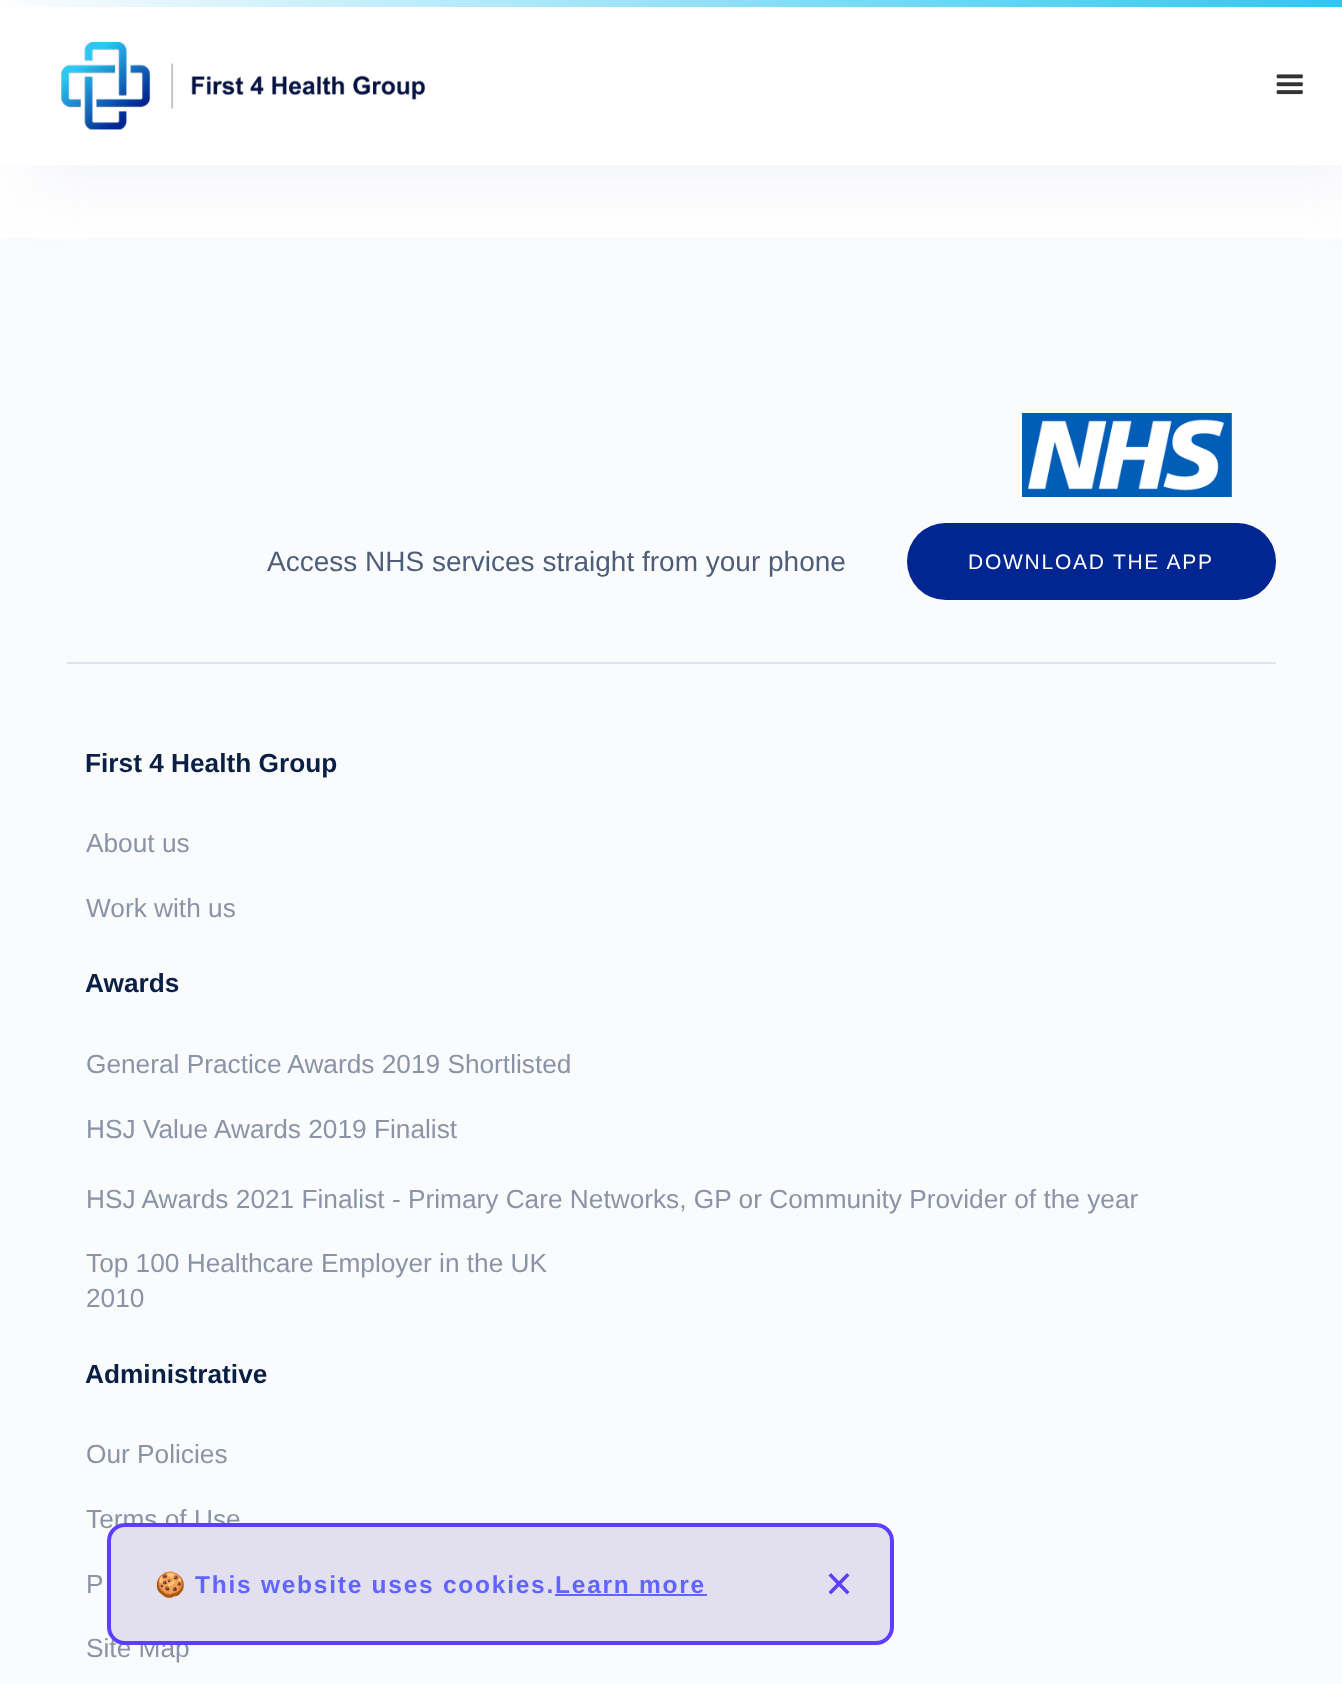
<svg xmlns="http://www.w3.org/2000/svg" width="1342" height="1684">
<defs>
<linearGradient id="g1" gradientUnits="userSpaceOnUse" x1="4.8" y1="62" x2="1337" y2="-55"><stop offset="0" stop-color="#fdfdfe"/><stop offset="1" stop-color="#2ec7f3"/></linearGradient>
</defs>
<rect width="100%" height="100%" fill="#fff"/>
<rect y="238" width="1342" height="1446" fill="#fafbfc"/>
<rect x="25" y="32" width="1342" height="157" fill="#767ead14" filter="blur(35px)"/>
<rect y="7" width="1342" height="158" fill="#fff"/>
<image x="61" y="42" width="365" height="88" href="media/1.png"/>
<image x="1276" y="74" width="27" height="21" href="media/2.png"/>
<rect x="9" width="1333" height="7" fill="url(#g1)"/>
<rect x="67" y="662" width="1209" height="2" fill="#e1e3ea"/>
<image x="1022" y="413" width="210" height="84" href="media/3.png"/>
<text x="267" y="571" style="font-family:Liberation Sans;font-size:28px;fill:#4e5d78">Access NHS services straight from your phone</text>
<rect x="907" y="523" width="369" height="77" rx="38.5" fill="#012691"/>
<text x="968" y="569" style="font-family:Liberation Sans;font-size:21px;letter-spacing:1.75px;fill:#fff">DOWNLOAD THE APP</text>
<text x="85" y="772" style="font-family:Liberation Sans;font-size:26.25px;font-weight:bold;fill:#0a1f44">First 4 Health Group</text>
<text x="86" y="852" style="font-family:Liberation Sans;font-size:26.25px;fill:#8a94a6">About us</text>
<text x="86" y="917" style="font-family:Liberation Sans;font-size:26.25px;fill:#8a94a6">Work with us</text>
<text x="85" y="992" style="font-family:Liberation Sans;font-size:26.25px;font-weight:bold;fill:#0a1f44">Awards</text>
<text x="86" y="1073" style="font-family:Liberation Sans;font-size:26.25px;fill:#8a94a6">General Practice Awards 2019 Shortlisted</text>
<text x="86" y="1138" style="font-family:Liberation Sans;font-size:26.25px;fill:#8a94a6">HSJ Value Awards 2019 Finalist</text>
<text x="86" y="1208" style="font-family:Liberation Sans;font-size:26.25px;fill:#8a94a6">HSJ Awards 2021 Finalist - Primary Care Networks, GP or Community Provider of the year</text>
<text x="86" y="1272" style="font-family:Liberation Sans;font-size:26.25px;fill:#8a94a6">Top 100 Healthcare Employer in the UK</text>
<text x="86" y="1307" style="font-family:Liberation Sans;font-size:26.25px;fill:#8a94a6">2010</text>
<text x="85" y="1383" style="font-family:Liberation Sans;font-size:26.25px;font-weight:bold;fill:#0a1f44">Administrative</text>
<text x="86" y="1463" style="font-family:Liberation Sans;font-size:26.25px;fill:#8a94a6">Our Policies</text>
<text x="86" y="1528" style="font-family:Liberation Sans;font-size:26.25px;fill:#8a94a6">Terms of Use</text>
<text x="86" y="1593" style="font-family:Liberation Sans;font-size:26.25px;fill:#8a94a6">P</text>
<text x="86" y="1657" style="font-family:Liberation Sans;font-size:26.25px;fill:#8a94a6">Site Map</text>
<rect x="109" y="1525" width="783" height="118" rx="16" fill="#e2e0ee" stroke="#5d3eff" stroke-width="4"/>
<text x="155" y="1593" style="font-family:Noto Color Emoji;font-size:24.5px;font-weight:bold;letter-spacing:1.75px;fill:#6165ff">🍪</text>
<text x="195" y="1593" style="font-family:Liberation Sans;font-size:24.5px;font-weight:bold;letter-spacing:1.75px;fill:#6165ff">This website uses cookies.Learn more</text>
<rect x="555" y="1594" width="152" height="2" fill="#6165ff"/>
<path d="M828.5 1592l18.5-19l2.5 2.5l-18.5 19z" fill="#5d3eff"/>
<path d="M831 1573l18.5 19l-2.5 2.5l-18.5-19z" fill="#5d3eff"/>
</svg>
